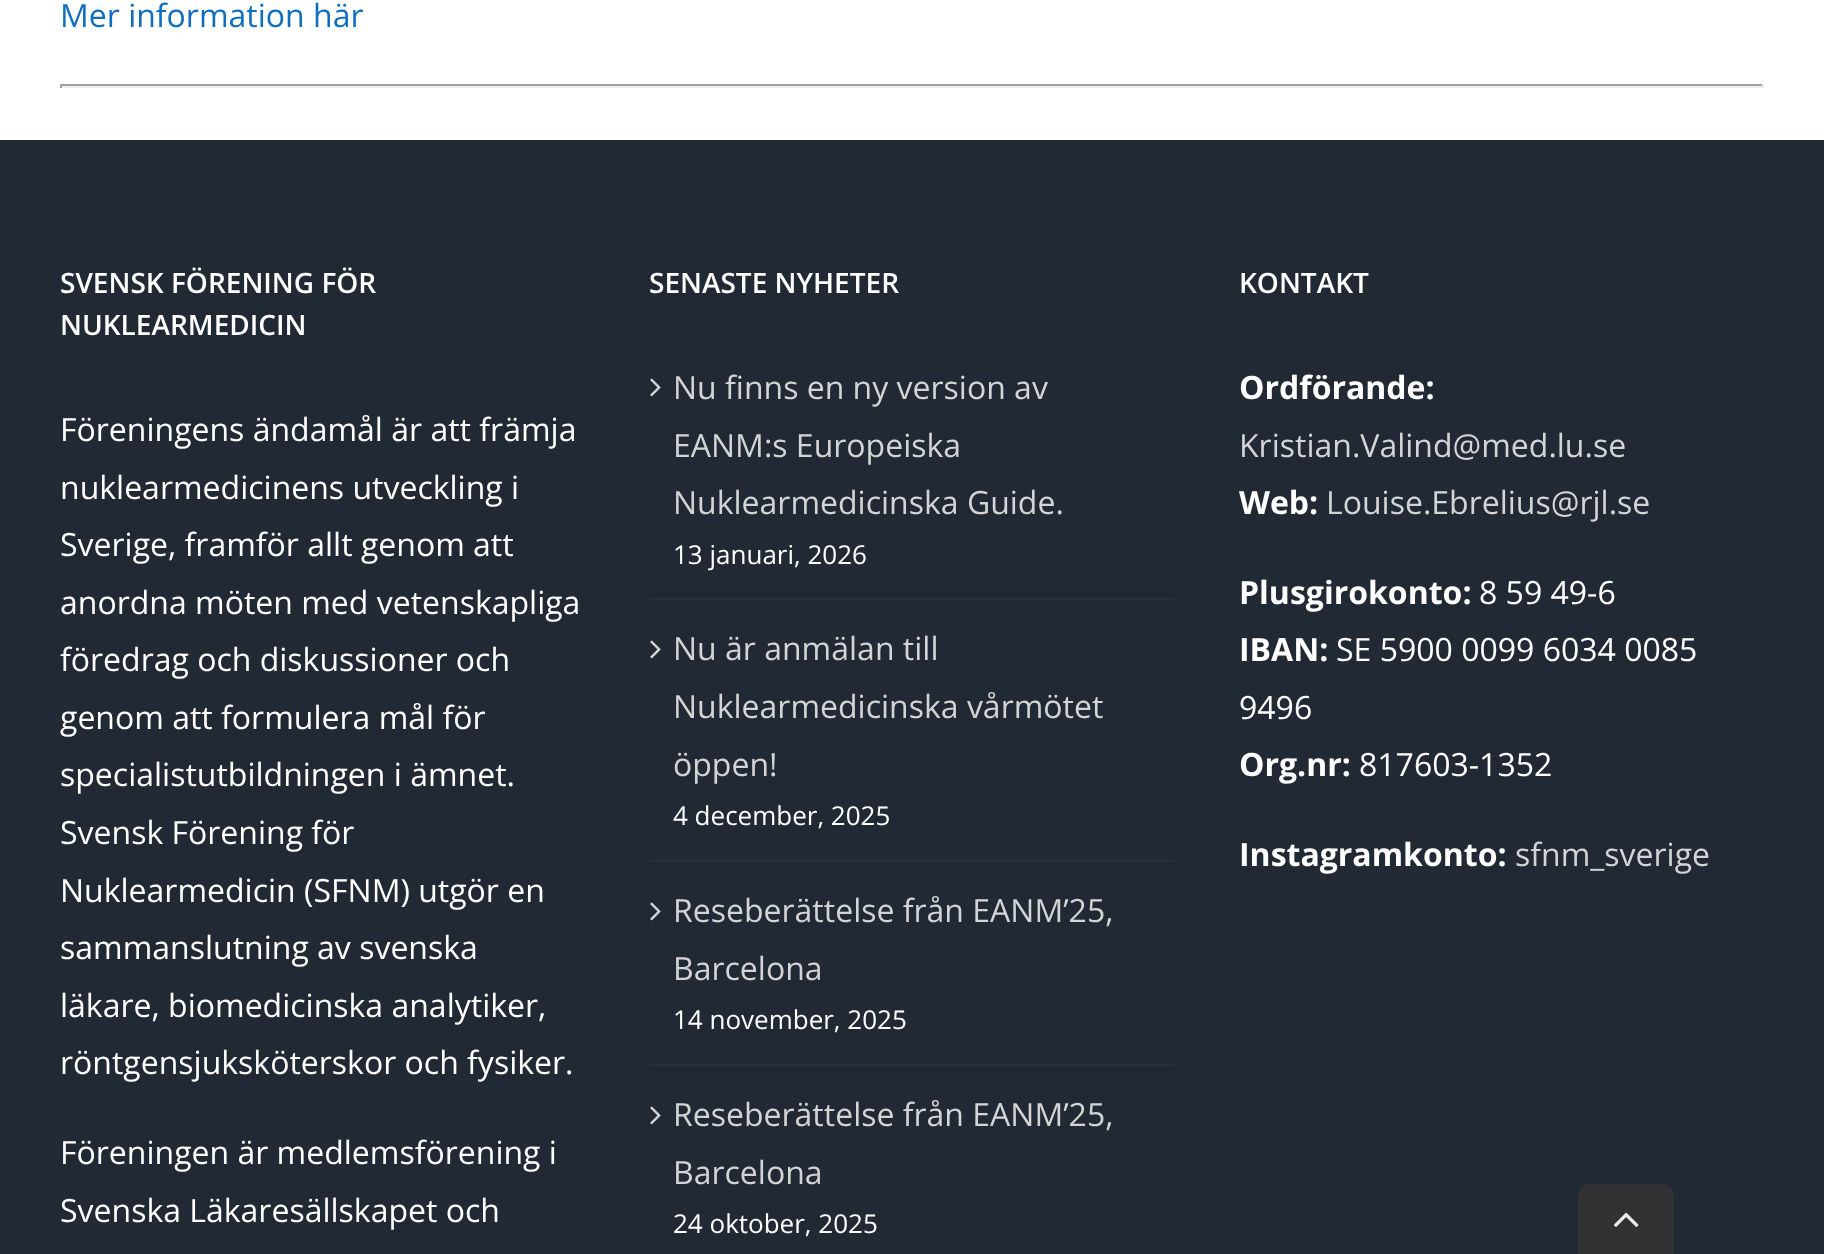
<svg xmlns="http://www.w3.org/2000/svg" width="1824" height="1254">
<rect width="100%" height="100%" fill="#fff"/>
<text x="60" y="27" style="font-family:Open Sans;font-size:32px;fill:#106ebe">Mer information här</text>
<rect x="60" y="84" width="1704" height="2" fill="#9f9f9f"/>
<rect x="1762" y="84" width="2" height="4" fill="#eee"/>
<rect x="60" y="86" width="1704" height="2" fill="#eee"/>
<rect x="60" y="84" width="2" height="4" fill="#9f9f9f"/>
<rect y="140" width="1824" height="1114" fill="#212934"/>
<text x="60" y="293" style="font-family:Open Sans;font-size:28px;font-weight:600;fill:#fff">SVENSK FÖRENING FÖR</text>
<text x="60" y="335" style="font-family:Open Sans;font-size:28px;font-weight:600;fill:#fff">NUKLEARMEDICIN</text>
<text x="60" y="441" style="font-family:Open Sans;font-size:32px;fill:#fff">Föreningens ändamål är att främja</text>
<text x="60" y="499" style="font-family:Open Sans;font-size:32px;fill:#fff">nuklearmedicinens utveckling i</text>
<text x="60" y="556" style="font-family:Open Sans;font-size:32px;fill:#fff">Sverige, framför allt genom att</text>
<text x="60" y="614" style="font-family:Open Sans;font-size:32px;fill:#fff">anordna möten med vetenskapliga</text>
<text x="60" y="671" style="font-family:Open Sans;font-size:32px;fill:#fff">föredrag och diskussioner och</text>
<text x="60" y="729" style="font-family:Open Sans;font-size:32px;fill:#fff">genom att formulera mål för</text>
<text x="60" y="786" style="font-family:Open Sans;font-size:32px;fill:#fff">specialistutbildningen i ämnet.</text>
<text x="60" y="844" style="font-family:Open Sans;font-size:32px;fill:#fff">Svensk Förening för</text>
<text x="60" y="902" style="font-family:Open Sans;font-size:32px;fill:#fff">Nuklearmedicin (SFNM) utgör en</text>
<text x="60" y="959" style="font-family:Open Sans;font-size:32px;fill:#fff">sammanslutning av svenska</text>
<text x="60" y="1017" style="font-family:Open Sans;font-size:32px;fill:#fff">läkare, biomedicinska analytiker,</text>
<text x="60" y="1074" style="font-family:Open Sans;font-size:32px;fill:#fff">röntgensjuksköterskor och fysiker.</text>
<text x="60" y="1164" style="font-family:Open Sans;font-size:32px;fill:#fff">Föreningen är medlemsförening i</text>
<text x="60" y="1222" style="font-family:Open Sans;font-size:32px;fill:#fff">Svenska Läkaresällskapet och</text>
<text x="649" y="293" style="font-family:Open Sans;font-size:28px;font-weight:600;fill:#fff">SENASTE NYHETER</text>
<rect x="650" y="598" width="524" height="2" fill="#26303e"/>
<image x="650" y="378" width="11" height="19" href="media/1.png"/>
<text x="673" y="399" style="font-family:Open Sans;font-size:32px;fill:#d3d4d6">Nu finns en ny version av</text>
<text x="673" y="457" style="font-family:Open Sans;font-size:32px;fill:#d3d4d6">EANM:s Europeiska</text>
<text x="673" y="514" style="font-family:Open Sans;font-size:32px;fill:#d3d4d6">Nuklearmedicinska Guide.</text>
<text x="673" y="564" style="font-family:Open Sans;font-size:26px;fill:#fff">13 januari, 2026</text>
<rect x="650" y="860" width="524" height="2" fill="#26303e"/>
<image x="650" y="640" width="11" height="19" href="media/1.png"/>
<text x="673" y="660" style="font-family:Open Sans;font-size:32px;fill:#d3d4d6">Nu är anmälan till</text>
<text x="673" y="718" style="font-family:Open Sans;font-size:32px;fill:#d3d4d6">Nuklearmedicinska vårmötet</text>
<text x="673" y="776" style="font-family:Open Sans;font-size:32px;fill:#d3d4d6">öppen!</text>
<text x="673" y="825" style="font-family:Open Sans;font-size:26px;fill:#fff">4 december, 2025</text>
<rect x="650" y="1064" width="524" height="2" fill="#26303e"/>
<image x="650" y="902" width="11" height="19" href="media/1.png"/>
<text x="673" y="922" style="font-family:Open Sans;font-size:32px;fill:#d3d4d6">Reseberättelse från EANM’25,</text>
<text x="673" y="980" style="font-family:Open Sans;font-size:32px;fill:#d3d4d6">Barcelona</text>
<text x="673" y="1029" style="font-family:Open Sans;font-size:26px;fill:#fff">14 november, 2025</text>
<image x="650" y="1106" width="11" height="19" href="media/1.png"/>
<text x="673" y="1126" style="font-family:Open Sans;font-size:32px;fill:#d3d4d6">Reseberättelse från EANM’25,</text>
<text x="673" y="1184" style="font-family:Open Sans;font-size:32px;fill:#d3d4d6">Barcelona</text>
<text x="673" y="1233" style="font-family:Open Sans;font-size:26px;fill:#fff">24 oktober, 2025</text>
<text x="1239" y="293" style="font-family:Open Sans;font-size:28px;font-weight:600;fill:#fff">KONTAKT</text>
<text x="1239" y="399" style="font-family:Open Sans;font-size:32px;font-weight:bold;fill:#fff">Ordförande:</text>
<text x="1239" y="457" style="font-family:Open Sans;font-size:32px;fill:#d3d4d6">Kristian.Valind@med.lu.se</text>
<text x="1239" y="514" style="font-family:Open Sans;font-size:32px;font-weight:bold;fill:#fff">Web:</text>
<text x="1326" y="514" style="font-family:Open Sans;font-size:32px;fill:#d3d4d6">Louise.Ebrelius@rjl.se</text>
<text x="1239" y="604" style="font-family:Open Sans;font-size:32px;font-weight:bold;fill:#fff">Plusgirokonto:</text>
<text x="1479" y="604" style="font-family:Open Sans;font-size:32px;fill:#fff">8 59 49-6</text>
<text x="1239" y="661" style="font-family:Open Sans;font-size:32px;font-weight:bold;fill:#fff">IBAN:</text>
<text x="1336" y="661" style="font-family:Open Sans;font-size:32px;fill:#fff">SE 5900 0099 6034 0085</text>
<text x="1239" y="719" style="font-family:Open Sans;font-size:32px;fill:#fff">9496</text>
<text x="1239" y="776" style="font-family:Open Sans;font-size:32px;font-weight:bold;fill:#fff">Org.nr:</text>
<text x="1359" y="776" style="font-family:Open Sans;font-size:32px;fill:#fff">817603-1352</text>
<text x="1239" y="866" style="font-family:Open Sans;font-size:32px;font-weight:bold;fill:#fff">Instagramkonto:</text>
<text x="1515" y="866" style="font-family:Open Sans;font-size:32px;fill:#d3d4d6">sfnm_sverige</text>
<path d="M1590 1184h72c6.5 0 12 5.5 12 12v58h-96v-58c0-6.5 5.5-12 12-12z" fill="#313233"/>
<image x="1614" y="1212" width="25" height="15" href="media/2.png"/>
</svg>
